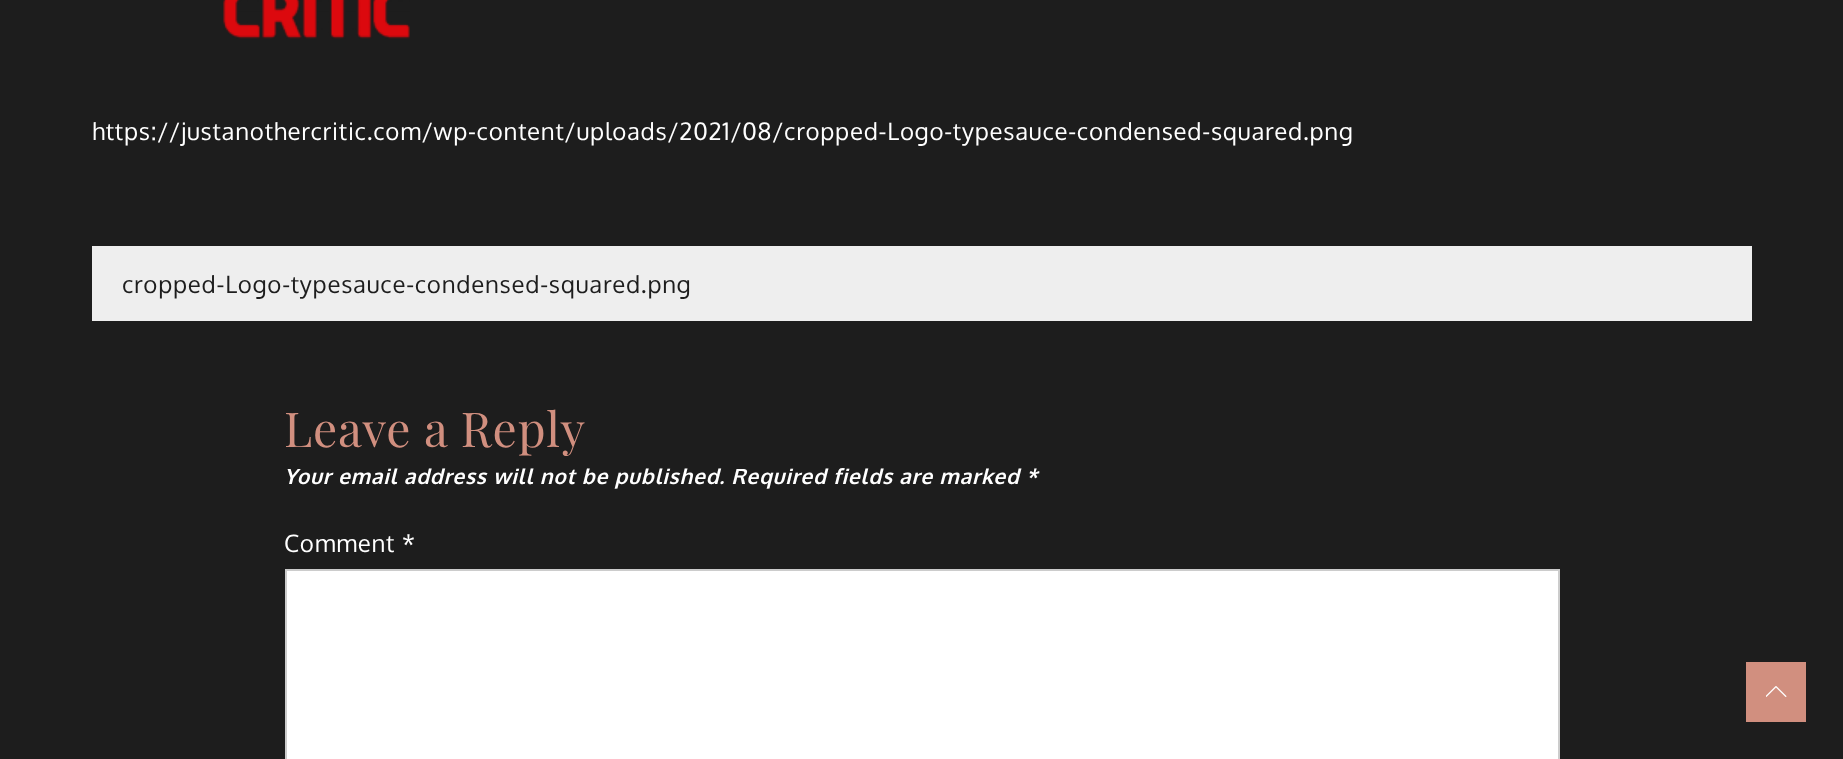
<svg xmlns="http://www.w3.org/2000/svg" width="1843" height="759">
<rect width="100%" height="100%" fill="#1d1d1d"/>
<image x="223" y="0" width="187" height="39" href="media/1.png"/>
<text x="92" y="140" style="font-family:Oxygen;font-size:24px;letter-spacing:0.75px;fill:#fff">https://justanothercritic.com/wp-content/uploads/2021/08/cropped-Logo-typesauce-condensed-squared.png</text>
<rect x="92" y="246" width="1660" height="75" fill="#eee"/>
<text x="122" y="293" style="font-family:Oxygen;font-size:24px;letter-spacing:0.75px;fill:#1d1d1d">cropped-Logo-typesauce-condensed-squared.png</text>
<text x="284" y="447" style="font-family:Playfair Display;font-size:48px;letter-spacing:0.75px;fill:#d18f7f">Leave a Reply</text>
<text x="284" y="484" style="font-family:Oxygen;font-size:21px;font-weight:bold;font-style:italic;letter-spacing:0.75px;fill:#fff">Your email address will not be published. Required fields are marked *</text>
<text x="284" y="552" style="font-family:Oxygen;font-size:24px;letter-spacing:0.75px;fill:#fff">Comment *</text>
<rect x="286" y="570" width="1273" height="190" fill="#fff" stroke="#ccc" stroke-width="2"/>
<rect x="1746" y="662" width="60" height="60" fill="#d18f7f"/>
<image x="1766" y="686" width="21" height="11" href="media/2.png"/>
</svg>
